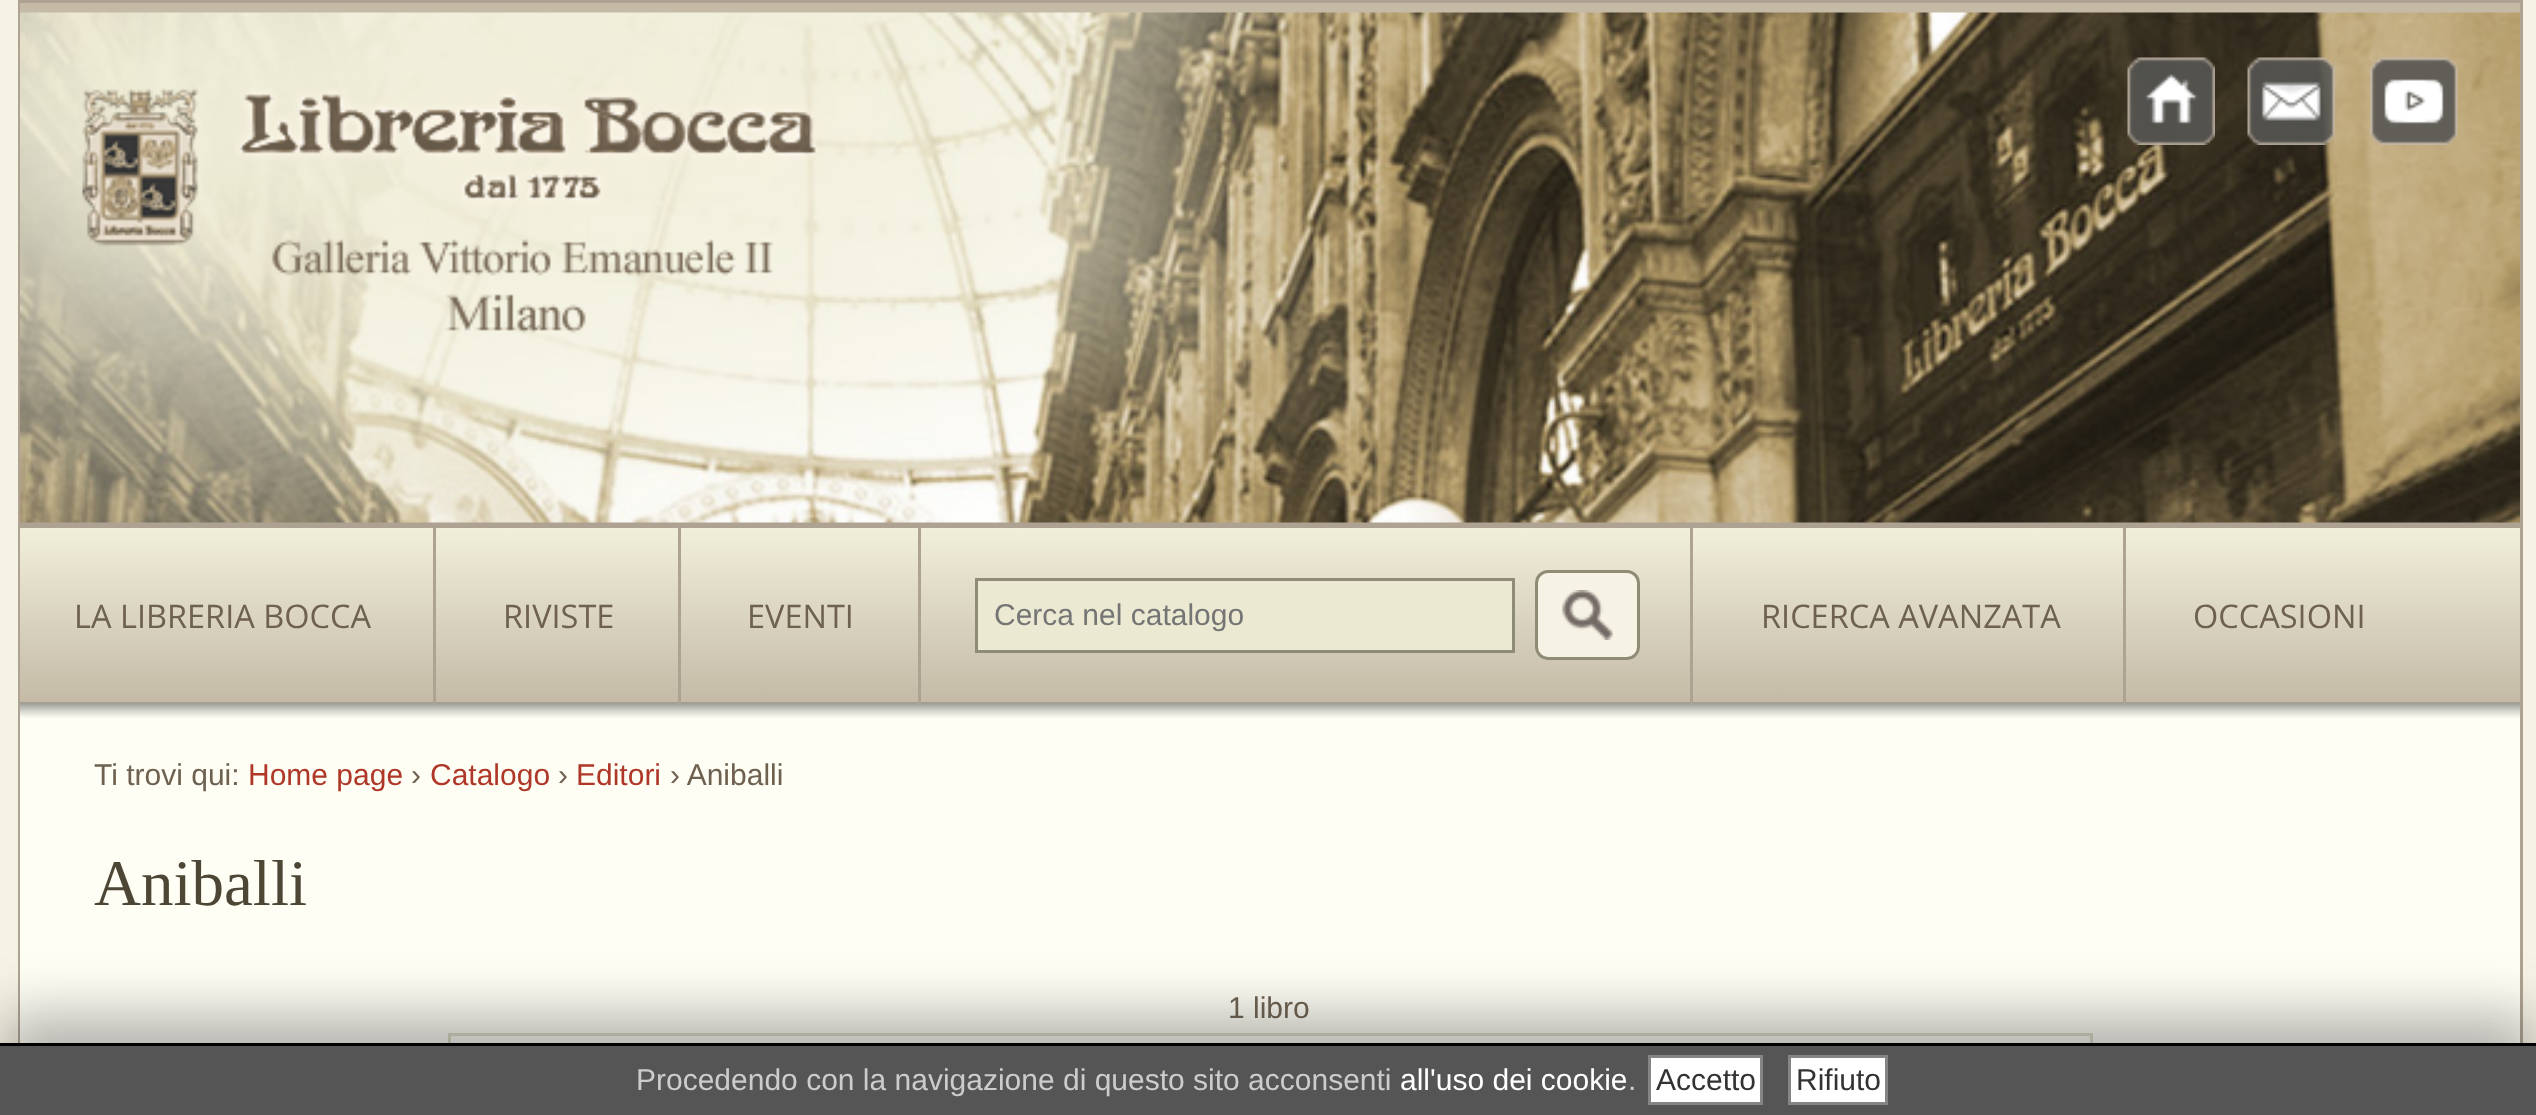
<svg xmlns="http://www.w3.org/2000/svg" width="2536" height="1115">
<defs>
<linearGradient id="g1" gradientUnits="userSpaceOnUse" x1="20" y1="528" x2="20" y2="703"><stop offset="0" stop-color="#f1efda"/><stop offset="1" stop-color="#c4baa6"/></linearGradient>
</defs>
<rect width="100%" height="100%" fill="#f6f3e5"/>
<rect x="19.5" y="1.5" width="2502" height="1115" fill="none" stroke="#aea292" stroke-width="3"/>
<rect x="20" y="703" width="2500" height="340" fill="#fffef5"/>
<rect x="20" y="3" width="2500" height="10" fill="#c4baa6"/>
<rect x="20" y="522" width="2500" height="6" fill="#aea292"/>
<image x="20" y="12" width="2500" height="511" href="media/1.png"/>
<image x="82" y="87" width="738" height="247" href="media/2.png"/>
<image x="2127" y="57" width="88" height="88" href="media/3.png"/>
<image x="2247" y="57" width="88" height="88" href="media/4.png"/>
<image x="2370" y="57" width="88" height="88" href="media/5.png"/>
<rect x="20" y="528" width="2500" height="175" fill="url(#g1)"/>
<image x="20" y="702" width="2500" height="16" href="media/7.png"/>
<rect x="433" y="528" width="3" height="177" fill="#aea292"/>
<text x="74" y="628" style="font-family:Open Sans;font-size:32.5px;fill:#6e614f">LA LIBRERIA BOCCA</text>
<rect x="678" y="528" width="3" height="177" fill="#aea292"/>
<text x="503" y="628" style="font-family:Open Sans;font-size:32.5px;fill:#6e614f">RIVISTE</text>
<rect x="918" y="528" width="3" height="177" fill="#aea292"/>
<text x="747" y="628" style="font-family:Open Sans;font-size:32.5px;fill:#6e614f">EVENTI</text>
<rect x="1690" y="528" width="3" height="175" fill="#aea292"/>
<rect x="976.5" y="579.5" width="537" height="72" fill="#ebe9d1" stroke="#8e8c75" stroke-width="3"/>
<text x="994" y="625" style="font-family:Liberation Sans;font-size:30px;fill:#757575">Cerca nel catalogo</text>
<rect x="1535" y="570" width="105" height="90" rx="13" fill="#f6f3e5"/>
<image x="1562" y="590" width="51" height="50" href="media/6.png"/>
<rect x="1536.5" y="571.5" width="102" height="87" rx="11.5" fill="none" stroke="#8e8c75" stroke-width="3"/>
<rect x="2123" y="528" width="3" height="177" fill="#aea292"/>
<text x="1761" y="628" style="font-family:Open Sans;font-size:32.5px;fill:#6e614f">RICERCA AVANZATA</text>
<text x="2193" y="628" style="font-family:Open Sans;font-size:32.5px;fill:#6e614f">OCCASIONI</text>
<text x="94" y="785" style="font-family:Liberation Sans;font-size:30px;fill:#6e614f">Ti trovi qui:</text>
<text x="248" y="785" style="font-family:Liberation Sans;font-size:30px;fill:#af3728">Home page</text>
<text x="411" y="785" style="font-family:Liberation Sans;font-size:30px;fill:#6e614f">›</text>
<text x="430" y="785" style="font-family:Liberation Sans;font-size:30px;fill:#af3728">Catalogo</text>
<text x="558" y="785" style="font-family:Liberation Sans;font-size:30px;fill:#6e614f">›</text>
<text x="576" y="785" style="font-family:Liberation Sans;font-size:30px;fill:#af3728">Editori</text>
<text x="670" y="785" style="font-family:Liberation Sans;font-size:30px;fill:#6e614f">› Aniballi</text>
<text x="94" y="905" style="font-family:Liberation Serif;font-size:65px;fill:#4e4634">Aniballi</text>
<text x="1228" y="1018" style="font-family:Liberation Sans;font-size:30px;fill:#6e614f">1 libro</text>
<rect x="448" y="1033" width="1645" height="3" fill="#dfddc7"/>
<rect x="2090" y="1033" width="3" height="10" fill="#dfddc7"/>
<rect x="448" y="1033" width="3" height="10" fill="#dfddc7"/>
<rect y="1018" width="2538" height="72" fill="#32323269" filter="blur(29px)"/>
<rect y="1046" width="2536" height="69" fill="#555"/>
<rect y="1043" width="2536" height="3" fill="#000"/>
<text x="636" y="1090" style="font-family:Liberation Sans;font-size:30px;fill:#ccc">Procedendo con la navigazione di questo sito acconsenti</text>
<text x="1400" y="1090" style="font-family:Liberation Sans;font-size:30px;fill:#fff">all'uso dei cookie</text>
<text x="1628" y="1090" style="font-family:Liberation Sans;font-size:30px;fill:#ccc">.</text>
<rect x="1649.5" y="1056.5" width="112" height="47" fill="#fff" stroke="#858585" stroke-width="3"/>
<text x="1656" y="1090" style="font-family:Liberation Sans;font-size:30px;fill:#333">Accetto</text>
<rect x="1789.5" y="1056.5" width="97" height="47" fill="#fff" stroke="#858585" stroke-width="3"/>
<text x="1796" y="1090" style="font-family:Liberation Sans;font-size:30px;fill:#333">Rifiuto</text>
</svg>
